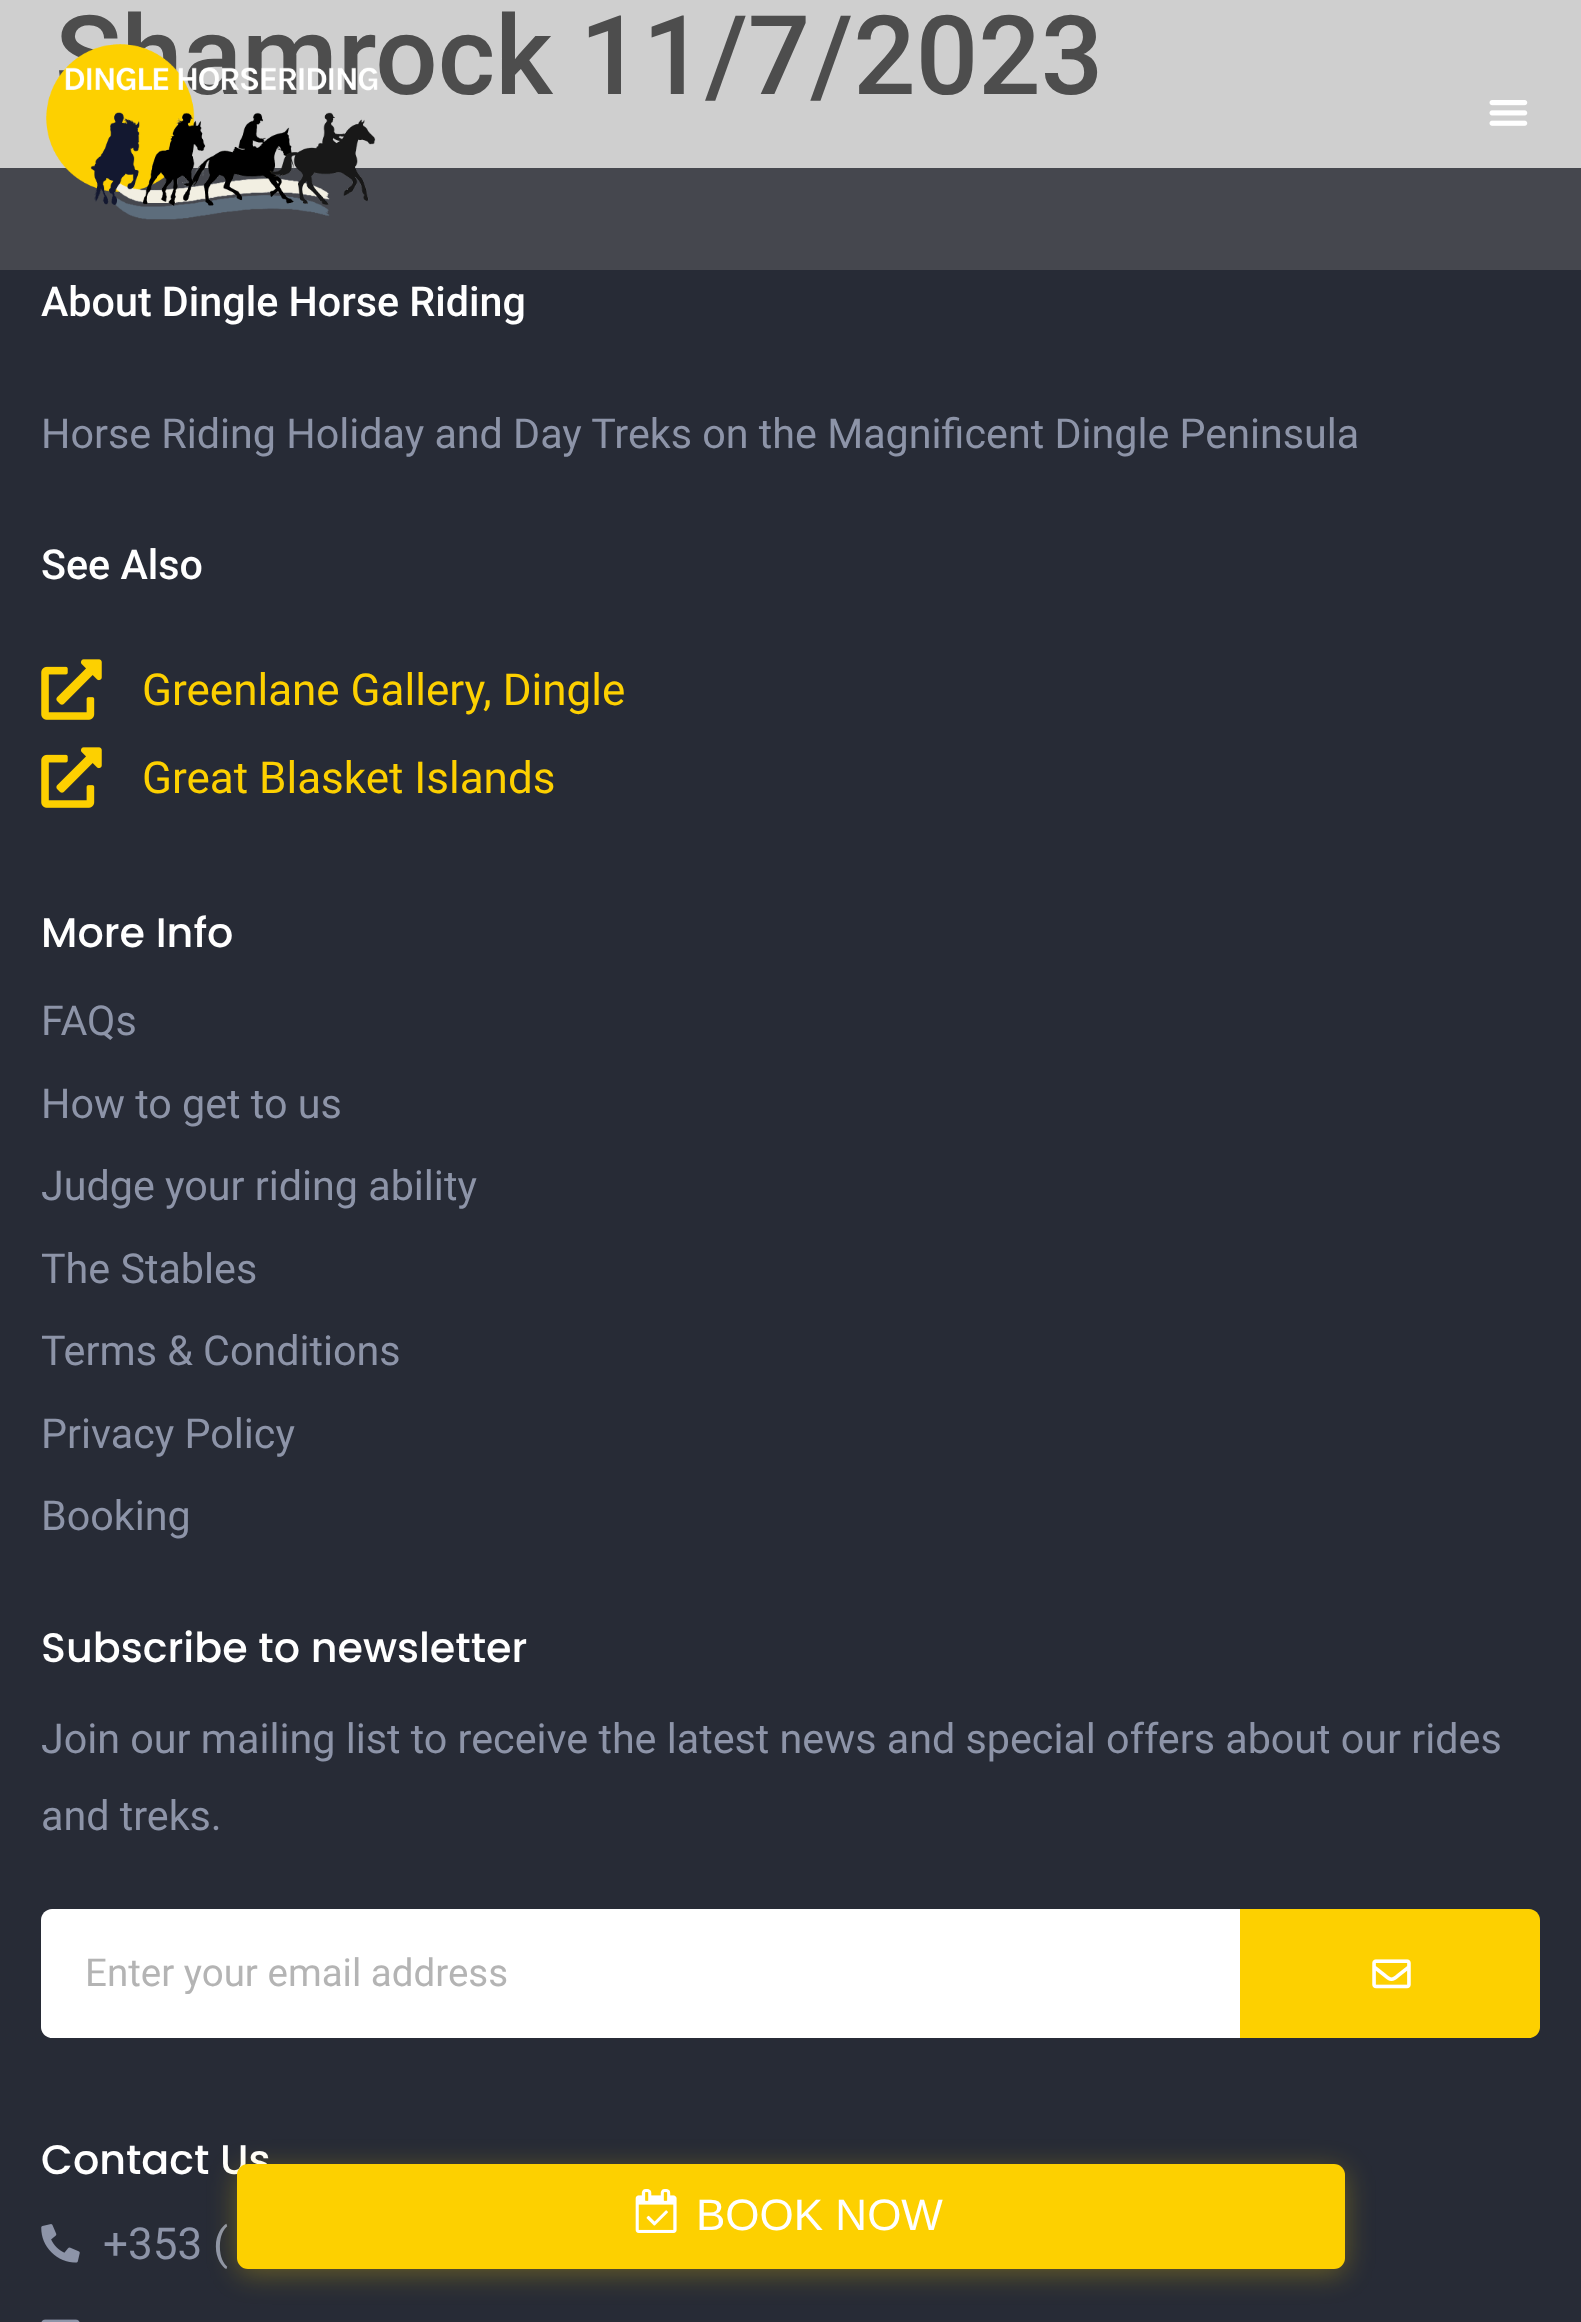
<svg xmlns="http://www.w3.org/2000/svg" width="1581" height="2322">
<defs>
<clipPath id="clip1"><rect x="85" y="1950" width="1111" height="44"/></clipPath>
</defs>
<rect width="100%" height="100%" fill="#cfcfcf"/>
<text x="55" y="94" style="font-family:Roboto;font-size:110px;font-weight:500;fill:#4d4d4d">Shamrock 11/7/2023</text>
<rect y="168" width="1581" height="102" fill="#45474e"/>
<image x="46" y="44" width="332" height="176" href="media/1.png"/>
<image x="1489" y="100" width="39" height="26" href="media/2.png"/>
<rect y="270" width="1581" height="2052" fill="#272b36"/>
<text x="41" y="316" style="font-family:Roboto;font-size:41.25px;font-weight:500;fill:#fff">About Dingle Horse Riding</text>
<text x="41" y="448" style="font-family:Roboto;font-size:41.25px;fill:#8d94a8">Horse Riding Holiday and Day Treks on the Magnificent Dingle Peninsula</text>
<text x="41" y="579" style="font-family:Roboto;font-size:41.25px;font-weight:500;fill:#fff">See Also</text>
<image x="41" y="659" width="61" height="61" href="media/3.png"/>
<text x="142" y="705" style="font-family:Roboto;font-size:44px;fill:#fdd000">Greenlane Gallery, Dingle</text>
<image x="41" y="747" width="61" height="61" href="media/3.png"/>
<text x="142" y="793" style="font-family:Roboto;font-size:44px;fill:#fdd000">Great Blasket Islands</text>
<text x="41" y="947" style="font-family:Poppins;font-size:41.25px;font-weight:500;fill:#fff">More Info</text>
<text x="41" y="1035" style="font-family:Roboto;font-size:41.25px;fill:#8d94a8">FAQs</text>
<text x="41" y="1118" style="font-family:Roboto;font-size:41.25px;fill:#8d94a8">How to get to us</text>
<text x="41" y="1200" style="font-family:Roboto;font-size:41.25px;fill:#8d94a8">Judge your riding ability</text>
<text x="41" y="1283" style="font-family:Roboto;font-size:41.25px;fill:#8d94a8">The Stables</text>
<text x="41" y="1365" style="font-family:Roboto;font-size:41.25px;fill:#8d94a8">Terms &amp; Conditions</text>
<text x="41" y="1448" style="font-family:Roboto;font-size:41.25px;fill:#8d94a8">Privacy Policy</text>
<text x="41" y="1530" style="font-family:Roboto;font-size:41.25px;fill:#8d94a8">Booking</text>
<text x="41" y="1662" style="font-family:Poppins;font-size:41.25px;font-weight:500;fill:#fff">Subscribe to newsletter</text>
<text x="41" y="1753" style="font-family:Roboto;font-size:41.25px;fill:#8d94a8">Join our mailing list to receive the latest news and special offers about our rides</text>
<text x="41" y="1830" style="font-family:Roboto;font-size:41.25px;fill:#8d94a8">and treks.</text>
<path d="M52 1909h1188v129h-1188c-6 0-11-5-11-11v-107c0-6 5-11 11-11z" fill="#fff"/>
<g clip-path="url(#clip1)">
<text x="85" y="1986" style="font-family:Roboto;font-size:38.5px;fill:#b4b4b4">Enter your email address</text>
</g>
<path d="M1240 1909h289c6 0 11 5 11 11v107c0 6-5 11-11 11h-289z" fill="#fdd000"/>
<image x="1372" y="1959" width="39" height="30" href="media/4.png"/>
<text x="41" y="2174" style="font-family:Poppins;font-size:41.25px;font-weight:500;fill:#fff">Contact Us</text>
<image x="41" y="2224" width="39" height="39" href="media/5.png"/>
<text x="103" y="2259" style="font-family:Roboto;font-size:44px;fill:#8d94a8">+353 (</text>
<image x="41" y="2319" width="39" height="3" href="media/6.png"/>
<rect x="237" y="2170" width="1108" height="104" rx="11" fill="#fdd0004d" filter="blur(14px)"/>
<rect x="237" y="2164" width="1108" height="105" rx="11" fill="#fdd000"/>
<image x="635" y="2189" width="42" height="44" href="media/7.png"/>
<text x="696" y="2230" style="font-family:Liberation Sans;font-size:44px;fill:#fff">BOOK NOW</text>
</svg>
